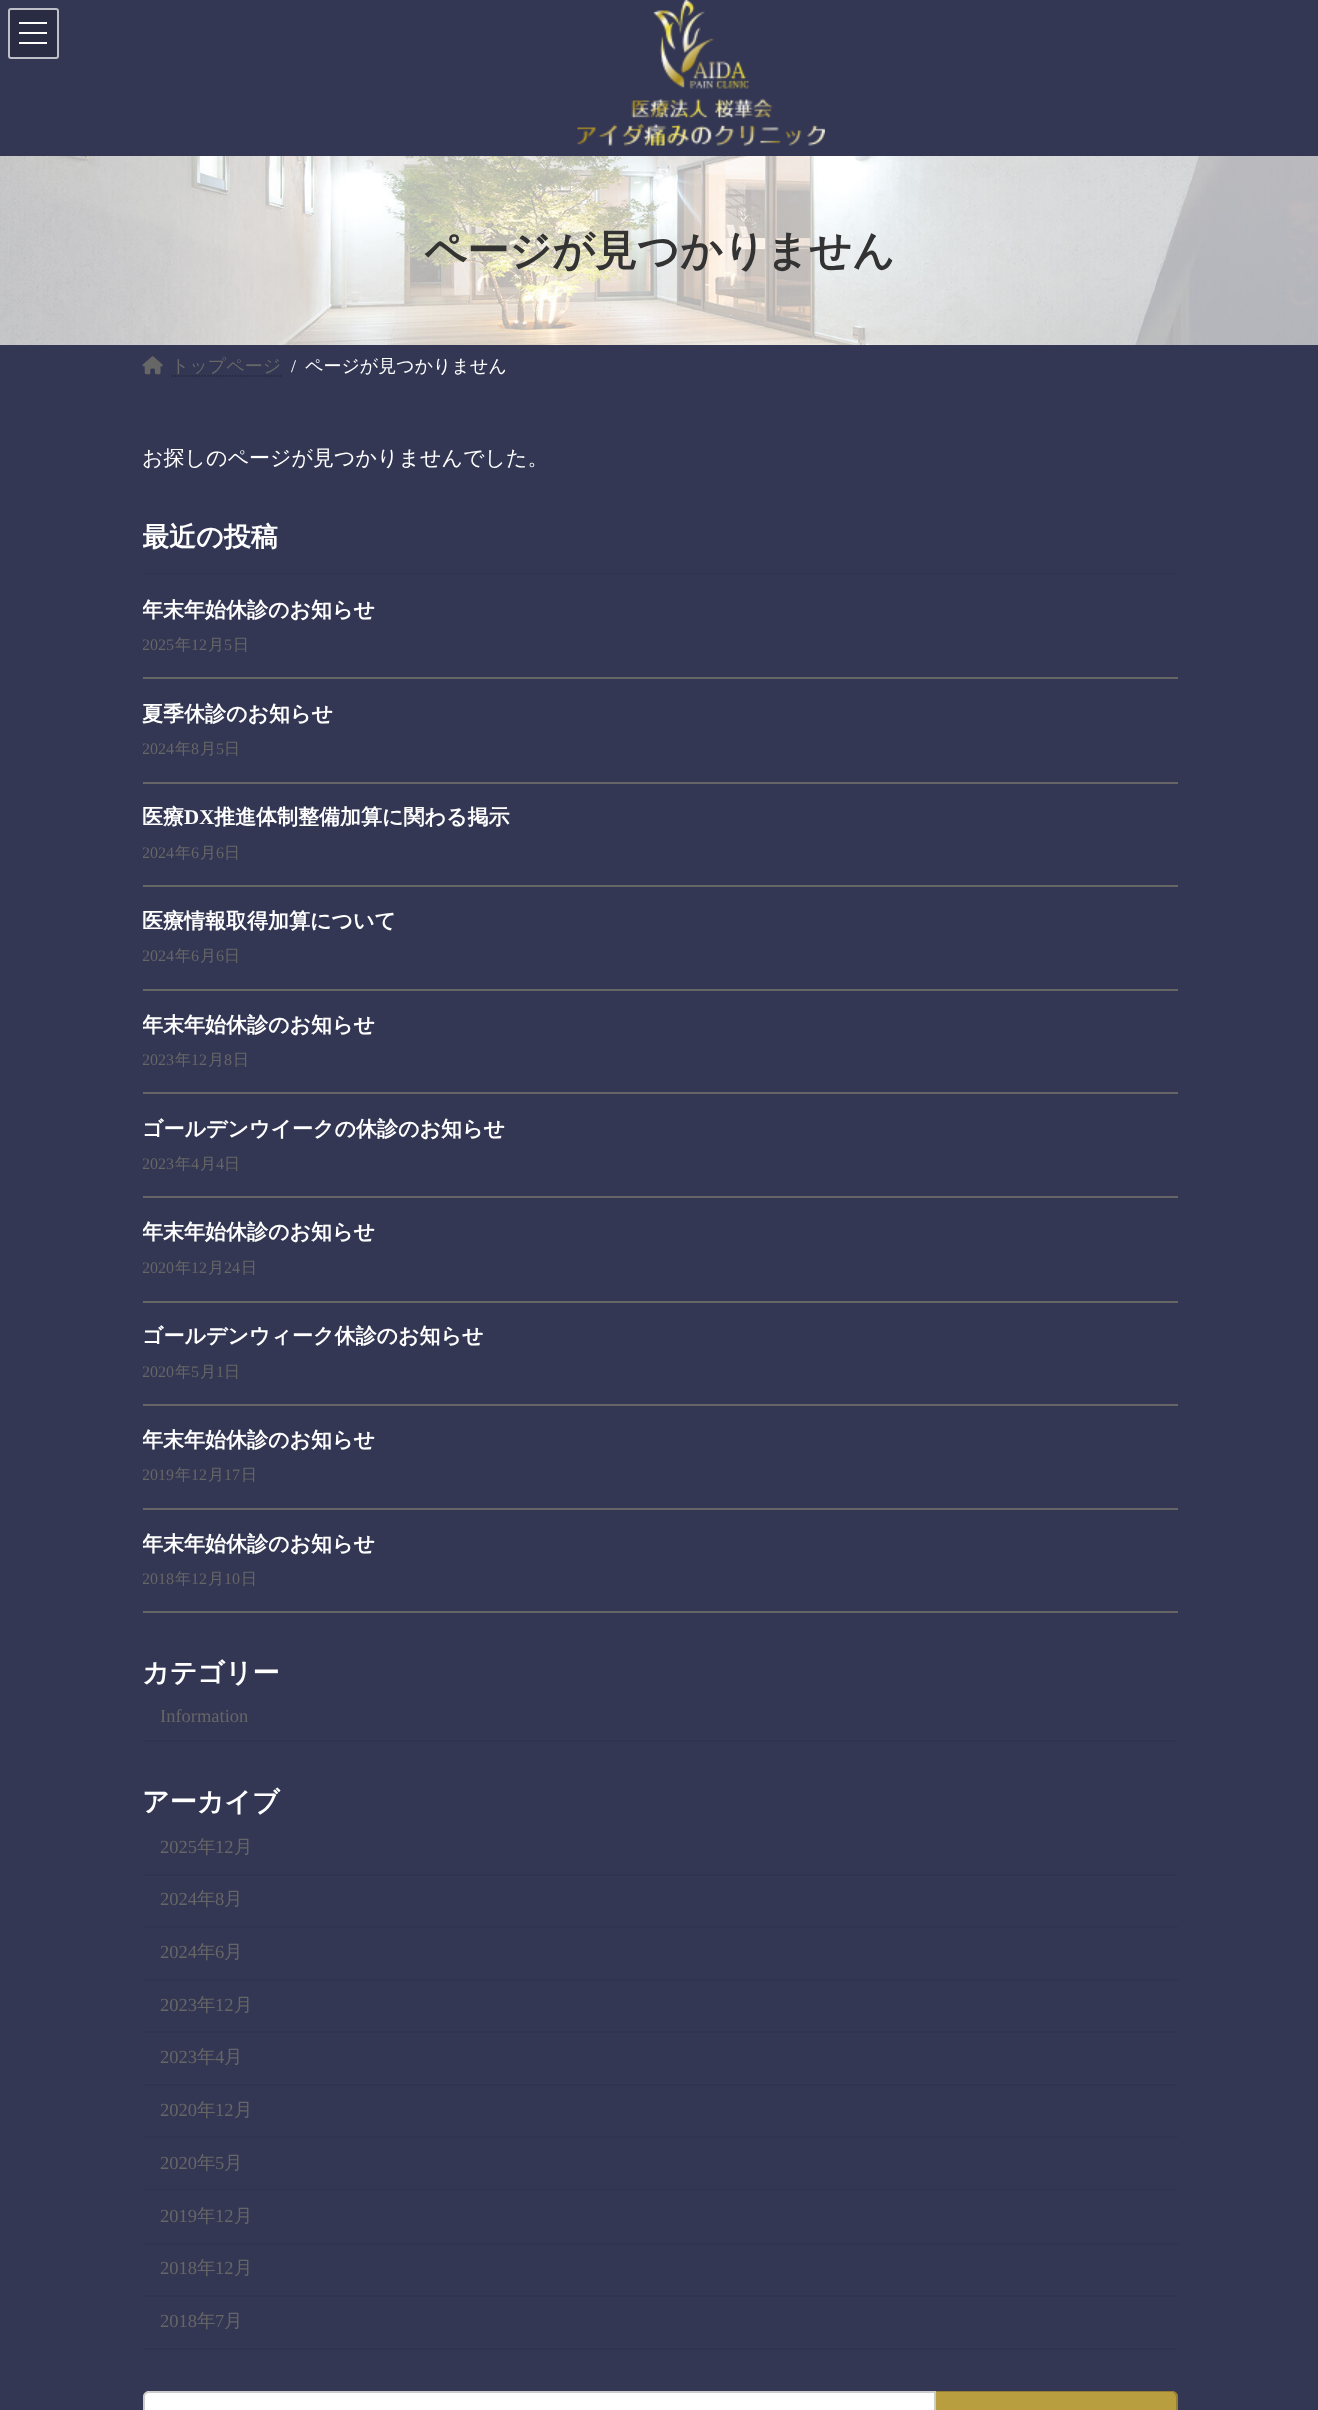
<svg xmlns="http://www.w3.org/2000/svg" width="1318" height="2410">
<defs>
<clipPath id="clip1"><rect x="143" y="519" width="1035" height="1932"/></clipPath>
</defs>
<rect width="100%" height="100%" fill="#343754"/>
<rect x="8" y="8" width="51" height="51" rx="3" fill="#2a2c43"/>
<rect x="19" y="22" width="28" height="2" fill="#fff"/>
<rect x="19" y="32" width="28" height="2" fill="#fff"/>
<rect x="19" y="42" width="28" height="2" fill="#fff"/>
<rect x="9" y="9" width="49" height="49" rx="2" fill="none" stroke="#ffffffb3" stroke-width="2"/>
<image x="577" y="0" width="248" height="146" href="media/1.png"/>
<image x="0" y="156" width="1318" height="189" href="media/2.png"/>
<text x="424" y="265" style="font-family:WenQuanYi Zen Hei;font-size:42px;font-weight:bold;fill:#333">ページが見つかりません</text>
<image x="142" y="356" width="21" height="19" href="media/3.png"/>
<text x="171" y="372" style="font-family:WenQuanYi Zen Hei;font-size:18px;font-weight:500;fill:#666">トップページ</text>
<path d="M171.5 376h110" fill="none" stroke="#24273b" stroke-width="1.5" stroke-dasharray="1.5 1.5"/>
<text x="291" y="372" style="font-family:Liberation Serif;font-size:18px;fill:#fff">/</text>
<text x="305" y="372" style="font-family:WenQuanYi Zen Hei;font-size:18px;font-weight:500;fill:#fff">ページが見つかりません</text>
<text x="142" y="465" style="font-family:WenQuanYi Zen Hei;font-size:21px;font-weight:500;fill:#fff">お探しのページが見つかりませんでした。</text>
<g clip-path="url(#clip1)">
<text x="142" y="546" style="font-family:WenQuanYi Zen Hei;font-size:27px;font-weight:bold;fill:#fff">最近の投稿</text>
</g>
<rect x="143" y="573" width="1035" height="2" fill="#31344f"/>
<rect x="143" y="677" width="1035" height="2" fill="#666"/>
<g clip-path="url(#clip1)">
<text x="142" y="617" style="font-family:WenQuanYi Zen Hei;font-size:21px;font-weight:bold;fill:#fff">年末年始休診のお知らせ</text>
<text x="142" y="650" style="font-family:Liberation Serif;font-size:16px;fill:#666">2025</text>
</g>
<text x="175" y="650" style="font-family:WenQuanYi Zen Hei;font-size:16px;font-weight:500;fill:#666">年</text>
<text x="191" y="650" style="font-family:Liberation Serif;font-size:16px;fill:#666">12</text>
<text x="208" y="650" style="font-family:WenQuanYi Zen Hei;font-size:16px;font-weight:500;fill:#666">月</text>
<text x="224" y="650" style="font-family:Liberation Serif;font-size:16px;fill:#666">5</text>
<text x="233" y="650" style="font-family:WenQuanYi Zen Hei;font-size:16px;font-weight:500;fill:#666">日</text>
<rect x="143" y="782" width="1035" height="2" fill="#666"/>
<text x="142" y="721" style="font-family:WenQuanYi Zen Hei;font-size:21px;font-weight:bold;fill:#fff">夏季休診のお知らせ</text>
<g clip-path="url(#clip1)">
<text x="142" y="754" style="font-family:Liberation Serif;font-size:16px;fill:#666">2024</text>
</g>
<text x="175" y="754" style="font-family:WenQuanYi Zen Hei;font-size:16px;font-weight:500;fill:#666">年</text>
<text x="191" y="754" style="font-family:Liberation Serif;font-size:16px;fill:#666">8</text>
<text x="200" y="754" style="font-family:WenQuanYi Zen Hei;font-size:16px;font-weight:500;fill:#666">月</text>
<text x="216" y="754" style="font-family:Liberation Serif;font-size:16px;fill:#666">5</text>
<text x="224" y="754" style="font-family:WenQuanYi Zen Hei;font-size:16px;font-weight:500;fill:#666">日</text>
<rect x="143" y="885" width="1035" height="2" fill="#666"/>
<text x="142" y="824" style="font-family:WenQuanYi Zen Hei;font-size:21px;font-weight:bold;fill:#fff">医療</text>
<text x="184" y="824" style="font-family:Liberation Serif;font-size:21px;font-weight:bold;fill:#fff">DX</text>
<text x="214" y="824" style="font-family:WenQuanYi Zen Hei;font-size:21px;font-weight:bold;fill:#fff">推進体制整備加算に関わる掲示</text>
<g clip-path="url(#clip1)">
<text x="142" y="858" style="font-family:Liberation Serif;font-size:16px;fill:#666">2024</text>
</g>
<text x="175" y="858" style="font-family:WenQuanYi Zen Hei;font-size:16px;font-weight:500;fill:#666">年</text>
<text x="191" y="858" style="font-family:Liberation Serif;font-size:16px;fill:#666">6</text>
<text x="200" y="858" style="font-family:WenQuanYi Zen Hei;font-size:16px;font-weight:500;fill:#666">月</text>
<text x="216" y="858" style="font-family:Liberation Serif;font-size:16px;fill:#666">6</text>
<text x="224" y="858" style="font-family:WenQuanYi Zen Hei;font-size:16px;font-weight:500;fill:#666">日</text>
<rect x="143" y="989" width="1035" height="2" fill="#666"/>
<text x="142" y="928" style="font-family:WenQuanYi Zen Hei;font-size:21px;font-weight:bold;fill:#fff">医療情報取得加算について</text>
<g clip-path="url(#clip1)">
<text x="142" y="961" style="font-family:Liberation Serif;font-size:16px;fill:#666">2024</text>
</g>
<text x="175" y="961" style="font-family:WenQuanYi Zen Hei;font-size:16px;font-weight:500;fill:#666">年</text>
<text x="191" y="961" style="font-family:Liberation Serif;font-size:16px;fill:#666">6</text>
<text x="200" y="961" style="font-family:WenQuanYi Zen Hei;font-size:16px;font-weight:500;fill:#666">月</text>
<text x="216" y="961" style="font-family:Liberation Serif;font-size:16px;fill:#666">6</text>
<text x="224" y="961" style="font-family:WenQuanYi Zen Hei;font-size:16px;font-weight:500;fill:#666">日</text>
<rect x="143" y="1092" width="1035" height="2" fill="#666"/>
<g clip-path="url(#clip1)">
<text x="142" y="1032" style="font-family:WenQuanYi Zen Hei;font-size:21px;font-weight:bold;fill:#fff">年末年始休診のお知らせ</text>
<text x="142" y="1065" style="font-family:Liberation Serif;font-size:16px;fill:#666">2023</text>
</g>
<text x="175" y="1065" style="font-family:WenQuanYi Zen Hei;font-size:16px;font-weight:500;fill:#666">年</text>
<text x="191" y="1065" style="font-family:Liberation Serif;font-size:16px;fill:#666">12</text>
<text x="208" y="1065" style="font-family:WenQuanYi Zen Hei;font-size:16px;font-weight:500;fill:#666">月</text>
<text x="224" y="1065" style="font-family:Liberation Serif;font-size:16px;fill:#666">8</text>
<text x="233" y="1065" style="font-family:WenQuanYi Zen Hei;font-size:16px;font-weight:500;fill:#666">日</text>
<rect x="143" y="1196" width="1035" height="2" fill="#666"/>
<text x="142" y="1136" style="font-family:WenQuanYi Zen Hei;font-size:21px;font-weight:bold;fill:#fff">ゴールデンウイークの休診のお知らせ</text>
<g clip-path="url(#clip1)">
<text x="142" y="1169" style="font-family:Liberation Serif;font-size:16px;fill:#666">2023</text>
</g>
<text x="175" y="1169" style="font-family:WenQuanYi Zen Hei;font-size:16px;font-weight:500;fill:#666">年</text>
<text x="191" y="1169" style="font-family:Liberation Serif;font-size:16px;fill:#666">4</text>
<text x="200" y="1169" style="font-family:WenQuanYi Zen Hei;font-size:16px;font-weight:500;fill:#666">月</text>
<text x="216" y="1169" style="font-family:Liberation Serif;font-size:16px;fill:#666">4</text>
<text x="224" y="1169" style="font-family:WenQuanYi Zen Hei;font-size:16px;font-weight:500;fill:#666">日</text>
<rect x="143" y="1301" width="1035" height="2" fill="#666"/>
<g clip-path="url(#clip1)">
<text x="142" y="1239" style="font-family:WenQuanYi Zen Hei;font-size:21px;font-weight:bold;fill:#fff">年末年始休診のお知らせ</text>
<text x="142" y="1273" style="font-family:Liberation Serif;font-size:16px;fill:#666">2020</text>
</g>
<text x="175" y="1273" style="font-family:WenQuanYi Zen Hei;font-size:16px;font-weight:500;fill:#666">年</text>
<text x="191" y="1273" style="font-family:Liberation Serif;font-size:16px;fill:#666">12</text>
<text x="208" y="1273" style="font-family:WenQuanYi Zen Hei;font-size:16px;font-weight:500;fill:#666">月</text>
<text x="224" y="1273" style="font-family:Liberation Serif;font-size:16px;fill:#666">24</text>
<text x="241" y="1273" style="font-family:WenQuanYi Zen Hei;font-size:16px;font-weight:500;fill:#666">日</text>
<rect x="143" y="1404" width="1035" height="2" fill="#666"/>
<text x="142" y="1343" style="font-family:WenQuanYi Zen Hei;font-size:21px;font-weight:bold;fill:#fff">ゴールデンウィーク休診のお知らせ</text>
<g clip-path="url(#clip1)">
<text x="142" y="1377" style="font-family:Liberation Serif;font-size:16px;fill:#666">2020</text>
</g>
<text x="175" y="1377" style="font-family:WenQuanYi Zen Hei;font-size:16px;font-weight:500;fill:#666">年</text>
<text x="191" y="1377" style="font-family:Liberation Serif;font-size:16px;fill:#666">5</text>
<text x="200" y="1377" style="font-family:WenQuanYi Zen Hei;font-size:16px;font-weight:500;fill:#666">月</text>
<text x="216" y="1377" style="font-family:Liberation Serif;font-size:16px;fill:#666">1</text>
<text x="224" y="1377" style="font-family:WenQuanYi Zen Hei;font-size:16px;font-weight:500;fill:#666">日</text>
<rect x="143" y="1508" width="1035" height="2" fill="#666"/>
<g clip-path="url(#clip1)">
<text x="142" y="1447" style="font-family:WenQuanYi Zen Hei;font-size:21px;font-weight:bold;fill:#fff">年末年始休診のお知らせ</text>
<text x="142" y="1480" style="font-family:Liberation Serif;font-size:16px;fill:#666">2019</text>
</g>
<text x="175" y="1480" style="font-family:WenQuanYi Zen Hei;font-size:16px;font-weight:500;fill:#666">年</text>
<text x="191" y="1480" style="font-family:Liberation Serif;font-size:16px;fill:#666">12</text>
<text x="208" y="1480" style="font-family:WenQuanYi Zen Hei;font-size:16px;font-weight:500;fill:#666">月</text>
<text x="224" y="1480" style="font-family:Liberation Serif;font-size:16px;fill:#666">17</text>
<text x="241" y="1480" style="font-family:WenQuanYi Zen Hei;font-size:16px;font-weight:500;fill:#666">日</text>
<rect x="143" y="1611" width="1035" height="2" fill="#666"/>
<g clip-path="url(#clip1)">
<text x="142" y="1551" style="font-family:WenQuanYi Zen Hei;font-size:21px;font-weight:bold;fill:#fff">年末年始休診のお知らせ</text>
<text x="142" y="1584" style="font-family:Liberation Serif;font-size:16px;fill:#666">2018</text>
</g>
<text x="175" y="1584" style="font-family:WenQuanYi Zen Hei;font-size:16px;font-weight:500;fill:#666">年</text>
<text x="191" y="1584" style="font-family:Liberation Serif;font-size:16px;fill:#666">12</text>
<text x="208" y="1584" style="font-family:WenQuanYi Zen Hei;font-size:16px;font-weight:500;fill:#666">月</text>
<text x="224" y="1584" style="font-family:Liberation Serif;font-size:16px;fill:#666">10</text>
<text x="241" y="1584" style="font-family:WenQuanYi Zen Hei;font-size:16px;font-weight:500;fill:#666">日</text>
<text x="142" y="1682" style="font-family:WenQuanYi Zen Hei;font-size:27px;font-weight:bold;fill:#fff">カテゴリー</text>
<rect x="143" y="1740" width="1035" height="2" fill="#31344f"/>
<text x="160" y="1722" style="font-family:Liberation Serif;font-size:18.5px;fill:#666">Information</text>
<text x="142" y="1811" style="font-family:WenQuanYi Zen Hei;font-size:27px;font-weight:bold;fill:#fff">アーカイブ</text>
<rect x="143" y="1874" width="1035" height="2" fill="#31344f"/>
<text x="160" y="1853" style="font-family:Liberation Serif;font-size:18.5px;fill:#666">2025</text>
<text x="197" y="1853" style="font-family:WenQuanYi Zen Hei;font-size:18.5px;font-weight:500;fill:#666">年</text>
<text x="215" y="1853" style="font-family:Liberation Serif;font-size:18.5px;fill:#666">12</text>
<text x="234" y="1853" style="font-family:WenQuanYi Zen Hei;font-size:18.5px;font-weight:500;fill:#666">月</text>
<rect x="143" y="1926" width="1035" height="2" fill="#31344f"/>
<text x="160" y="1905" style="font-family:Liberation Serif;font-size:18.5px;fill:#666">2024</text>
<text x="197" y="1905" style="font-family:WenQuanYi Zen Hei;font-size:18.5px;font-weight:500;fill:#666">年</text>
<text x="215" y="1905" style="font-family:Liberation Serif;font-size:18.5px;fill:#666">8</text>
<text x="224" y="1905" style="font-family:WenQuanYi Zen Hei;font-size:18.5px;font-weight:500;fill:#666">月</text>
<rect x="143" y="1979" width="1035" height="2" fill="#31344f"/>
<text x="160" y="1958" style="font-family:Liberation Serif;font-size:18.5px;fill:#666">2024</text>
<text x="197" y="1958" style="font-family:WenQuanYi Zen Hei;font-size:18.5px;font-weight:500;fill:#666">年</text>
<text x="215" y="1958" style="font-family:Liberation Serif;font-size:18.5px;fill:#666">6</text>
<text x="224" y="1958" style="font-family:WenQuanYi Zen Hei;font-size:18.5px;font-weight:500;fill:#666">月</text>
<rect x="143" y="2031" width="1035" height="2" fill="#31344f"/>
<text x="160" y="2011" style="font-family:Liberation Serif;font-size:18.5px;fill:#666">2023</text>
<text x="197" y="2011" style="font-family:WenQuanYi Zen Hei;font-size:18.5px;font-weight:500;fill:#666">年</text>
<text x="215" y="2011" style="font-family:Liberation Serif;font-size:18.5px;fill:#666">12</text>
<text x="234" y="2011" style="font-family:WenQuanYi Zen Hei;font-size:18.5px;font-weight:500;fill:#666">月</text>
<rect x="143" y="2084" width="1035" height="2" fill="#31344f"/>
<text x="160" y="2063" style="font-family:Liberation Serif;font-size:18.5px;fill:#666">2023</text>
<text x="197" y="2063" style="font-family:WenQuanYi Zen Hei;font-size:18.5px;font-weight:500;fill:#666">年</text>
<text x="215" y="2063" style="font-family:Liberation Serif;font-size:18.5px;fill:#666">4</text>
<text x="224" y="2063" style="font-family:WenQuanYi Zen Hei;font-size:18.5px;font-weight:500;fill:#666">月</text>
<rect x="143" y="2136" width="1035" height="2" fill="#31344f"/>
<text x="160" y="2116" style="font-family:Liberation Serif;font-size:18.5px;fill:#666">2020</text>
<text x="197" y="2116" style="font-family:WenQuanYi Zen Hei;font-size:18.5px;font-weight:500;fill:#666">年</text>
<text x="215" y="2116" style="font-family:Liberation Serif;font-size:18.5px;fill:#666">12</text>
<text x="234" y="2116" style="font-family:WenQuanYi Zen Hei;font-size:18.5px;font-weight:500;fill:#666">月</text>
<rect x="143" y="2189" width="1035" height="2" fill="#31344f"/>
<text x="160" y="2169" style="font-family:Liberation Serif;font-size:18.5px;fill:#666">2020</text>
<text x="197" y="2169" style="font-family:WenQuanYi Zen Hei;font-size:18.5px;font-weight:500;fill:#666">年</text>
<text x="215" y="2169" style="font-family:Liberation Serif;font-size:18.5px;fill:#666">5</text>
<text x="224" y="2169" style="font-family:WenQuanYi Zen Hei;font-size:18.5px;font-weight:500;fill:#666">月</text>
<rect x="143" y="2243" width="1035" height="2" fill="#31344f"/>
<text x="160" y="2222" style="font-family:Liberation Serif;font-size:18.5px;fill:#666">2019</text>
<text x="197" y="2222" style="font-family:WenQuanYi Zen Hei;font-size:18.5px;font-weight:500;fill:#666">年</text>
<text x="215" y="2222" style="font-family:Liberation Serif;font-size:18.5px;fill:#666">12</text>
<text x="234" y="2222" style="font-family:WenQuanYi Zen Hei;font-size:18.5px;font-weight:500;fill:#666">月</text>
<rect x="143" y="2295" width="1035" height="2" fill="#31344f"/>
<text x="160" y="2274" style="font-family:Liberation Serif;font-size:18.5px;fill:#666">2018</text>
<text x="197" y="2274" style="font-family:WenQuanYi Zen Hei;font-size:18.5px;font-weight:500;fill:#666">年</text>
<text x="215" y="2274" style="font-family:Liberation Serif;font-size:18.5px;fill:#666">12</text>
<text x="234" y="2274" style="font-family:WenQuanYi Zen Hei;font-size:18.5px;font-weight:500;fill:#666">月</text>
<rect x="143" y="2348" width="1035" height="2" fill="#31344f"/>
<text x="160" y="2327" style="font-family:Liberation Serif;font-size:18.5px;fill:#666">2018</text>
<text x="197" y="2327" style="font-family:WenQuanYi Zen Hei;font-size:18.5px;font-weight:500;fill:#666">年</text>
<text x="215" y="2327" style="font-family:Liberation Serif;font-size:18.5px;fill:#666">7</text>
<text x="224" y="2327" style="font-family:WenQuanYi Zen Hei;font-size:18.5px;font-weight:500;fill:#666">月</text>
<path d="M149 2391h787v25h-787c-3.5 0-6-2.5-6-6v-13c0-3.5 2.5-6 6-6z" fill="#fff"/>
<path d="M149 2392h786v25h-786c-3 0-5-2-5-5v-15c0-3 2-5 5-5z" fill="none" stroke="#00000033" stroke-width="2"/>
<path d="M936 2391h236c3.5 0 6 2.5 6 6v13c0 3.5-2.5 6-6 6h-236z" fill="#b89e3f"/>
<path d="M936 2391h236c3 0 6 3 6 6v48c0 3-3 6-6 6h-236zm0 1h236c2 0 4 3 4 5v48c0 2-2 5-4 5h-236z" fill="#00000033" fill-rule="evenodd"/>
</svg>
